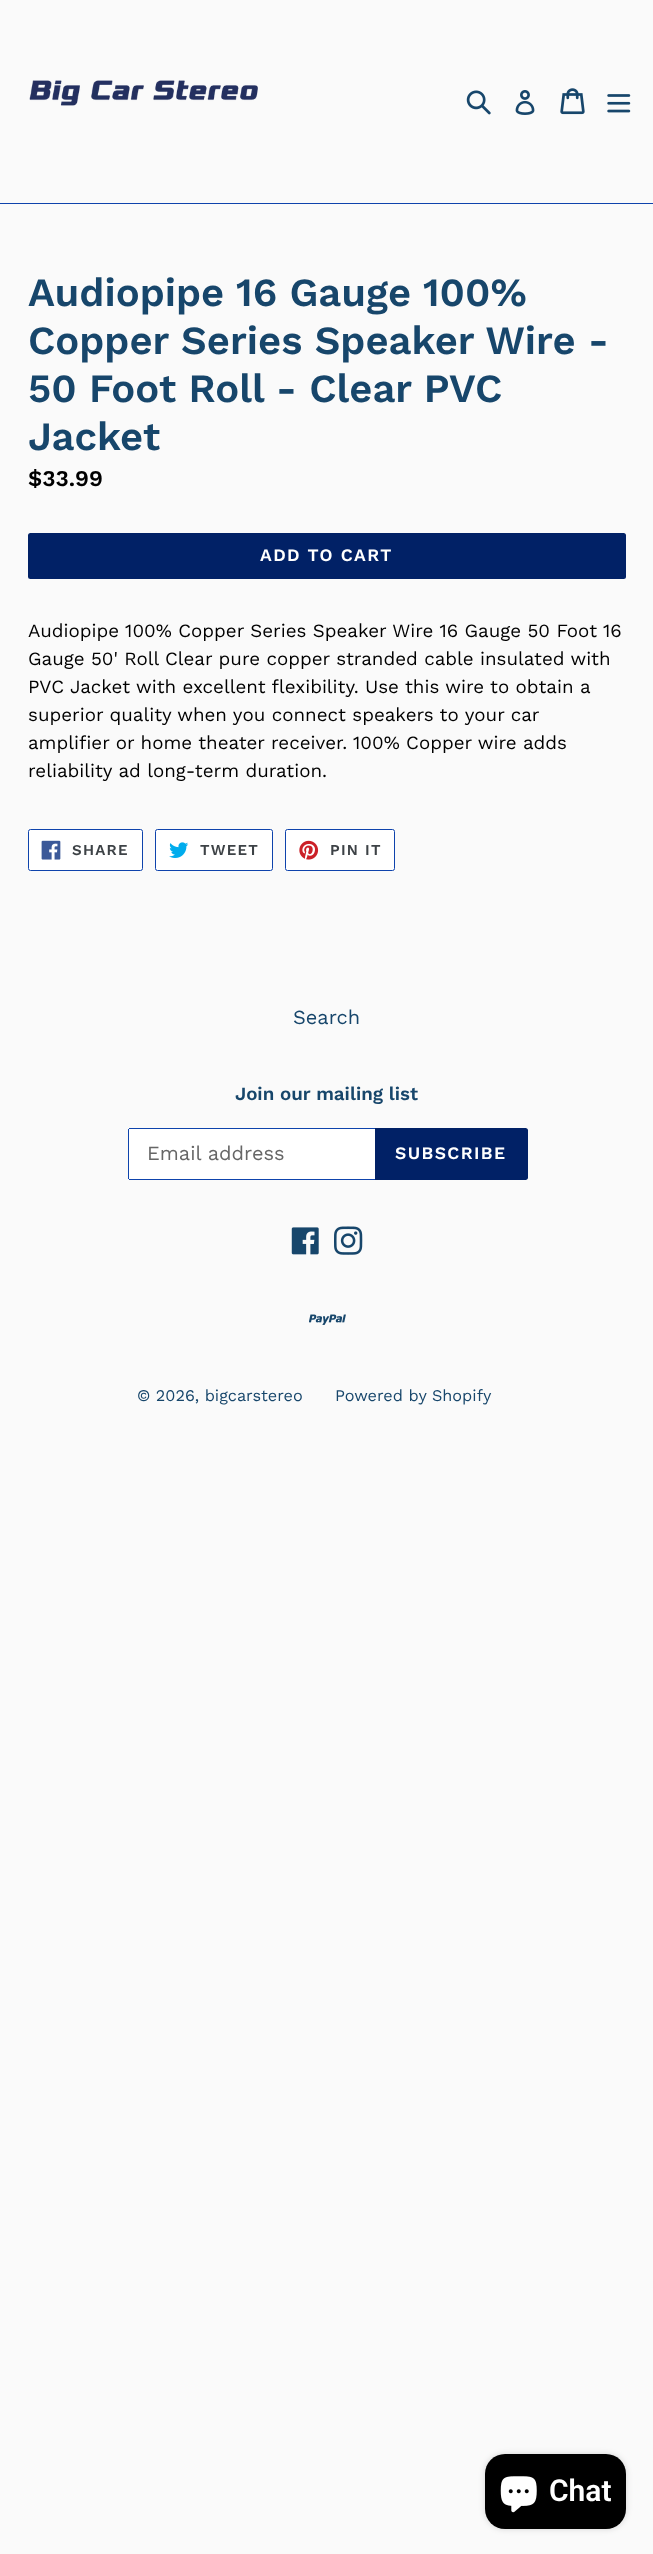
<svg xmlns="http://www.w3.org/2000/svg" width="653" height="2554">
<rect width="100%" height="100%" fill="#fafafa"/>
<rect y="203" width="653" height="1" fill="#0e43ac"/>
<image x="29" y="80" width="229" height="26" href="media/1.png"/>
<image x="466" y="90" width="25" height="25" href="media/2.png"/>
<image x="515" y="90" width="20" height="25" href="media/3.png"/>
<image x="560" y="88" width="25" height="27" href="media/4.png"/>
<image x="607" y="94" width="24" height="19" href="media/5.png"/>
<text x="28" y="306" style="font-family:Work Sans;font-size:40px;font-weight:600;fill:#17466b">Audiopipe 16 Gauge 100%</text>
<text x="28" y="354" style="font-family:Work Sans;font-size:40px;font-weight:600;fill:#17466b">Copper Series Speaker Wire -</text>
<text x="28" y="402" style="font-family:Work Sans;font-size:40px;font-weight:600;fill:#17466b">50 Foot Roll - Clear PVC</text>
<text x="28" y="450" style="font-family:Work Sans;font-size:40px;font-weight:600;fill:#17466b">Jacket</text>
<text x="28" y="486" style="font-family:Work Sans;font-size:22.5px;font-weight:600;fill:#000">$33.99</text>
<rect x="28" y="533" width="598" height="46" rx="2.5" fill="#012166"/>
<text x="260" y="561" style="font-family:Work Sans;font-size:17.5px;font-weight:600;letter-spacing:1.4px;fill:#fff">ADD TO CART</text>
<text x="28" y="637" style="font-family:Work Sans;font-size:18.75px;fill:#000">Audiopipe 100% Copper Series Speaker Wire 16 Gauge 50 Foot</text>
<text x="603" y="637" style="font-family:Work Sans;font-size:18.75px;fill:#000">16</text>
<text x="28" y="665" style="font-family:Work Sans;font-size:18.75px;fill:#000">Gauge 50' Roll Clear pure copper stranded cable insulated with</text>
<text x="28" y="693" style="font-family:Work Sans;font-size:18.75px;fill:#000">PVC Jacket with excellent flexibility. Use this wire to obtain a</text>
<text x="28" y="721" style="font-family:Work Sans;font-size:18.75px;fill:#000">superior quality when you connect speakers to your car</text>
<text x="28" y="749" style="font-family:Work Sans;font-size:18.75px;fill:#000">amplifier or home theater receiver.</text>
<text x="353" y="749" style="font-family:Work Sans;font-size:18.75px;fill:#000">100% Copper wire adds</text>
<text x="28" y="777" style="font-family:Work Sans;font-size:18.75px;fill:#000">reliability ad long-term duration.</text>
<rect x="28.5" y="829.5" width="114" height="41" rx="2" fill="#fff" stroke="#0e43ac"/>
<image x="41" y="840" width="20" height="20" href="media/6.png"/>
<text x="72" y="855" style="font-family:Work Sans;font-size:15px;font-weight:600;letter-spacing:1.25px;fill:#3d4246">SHARE</text>
<rect x="155.5" y="829.5" width="117" height="41" rx="2" fill="#fff" stroke="#0e43ac"/>
<image x="169" y="842" width="20" height="16" href="media/7.png"/>
<text x="200" y="855" style="font-family:Work Sans;font-size:15px;font-weight:600;letter-spacing:1.25px;fill:#3d4246">TWEET</text>
<rect x="285.5" y="829.5" width="109" height="41" rx="2" fill="#fff" stroke="#0e43ac"/>
<image x="299" y="840" width="20" height="20" href="media/8.png"/>
<text x="330" y="855" style="font-family:Work Sans;font-size:15px;font-weight:600;letter-spacing:1.25px;fill:#3d4246">PIN IT</text>
<text x="293" y="1024" style="font-family:Work Sans;font-size:20px;fill:#17466b">Search</text>
<text x="235" y="1100" style="font-family:Work Sans;font-size:18.75px;font-weight:600;fill:#17466b">Join our mailing list</text>
<path d="M130.5 1128h244.5v52h-244.5c-1.5 0-2.5-1-2.5-2.5v-47c0-1.5 1-2.5 2.5-2.5z" fill="#fff"/>
<rect x="129" y="1128" width="246" height="1" fill="#0e43ac"/>
<rect x="129" y="1179" width="246" height="1" fill="#0e43ac"/>
<rect x="128" y="1129" width="1" height="50" fill="#0e43ac"/>
<text x="147" y="1160" style="font-family:Work Sans;font-size:20px;fill:#666">Email address</text>
<path d="M375 1128h150.5c1.5 0 2.5 1 2.5 2.5v47c0 1.5-1 2.5-2.5 2.5h-150.5z" fill="#012166"/>
<text x="395" y="1159" style="font-family:Work Sans;font-size:17.5px;font-weight:600;letter-spacing:1.4px;fill:#fff">SUBSCRIBE</text>
<image x="291" y="1227" width="28" height="28" href="media/9.png"/>
<image x="334" y="1226" width="29" height="29" href="media/10.png"/>
<image x="309" y="1314" width="37" height="11" href="media/11.png"/>
<text x="137" y="1401" style="font-family:Work Sans;font-size:16.25px;fill:#17466b">© 2026, bigcarstereo</text>
<text x="335" y="1401" style="font-family:Work Sans;font-size:16.25px;fill:#17466b">Powered by Shopify</text>
<rect x="485" y="2454" width="141" height="75" rx="20" fill="#00000026" filter="blur(3px)"/>
<rect x="485" y="2454" width="141" height="75" rx="20" fill="#000"/>
<image x="500" y="2476" width="37" height="37" href="media/12.png"/>
<text x="549" y="2501" style="font-family:Roboto;font-size:30px;font-weight:600;fill:#fff">Chat</text>
</svg>
